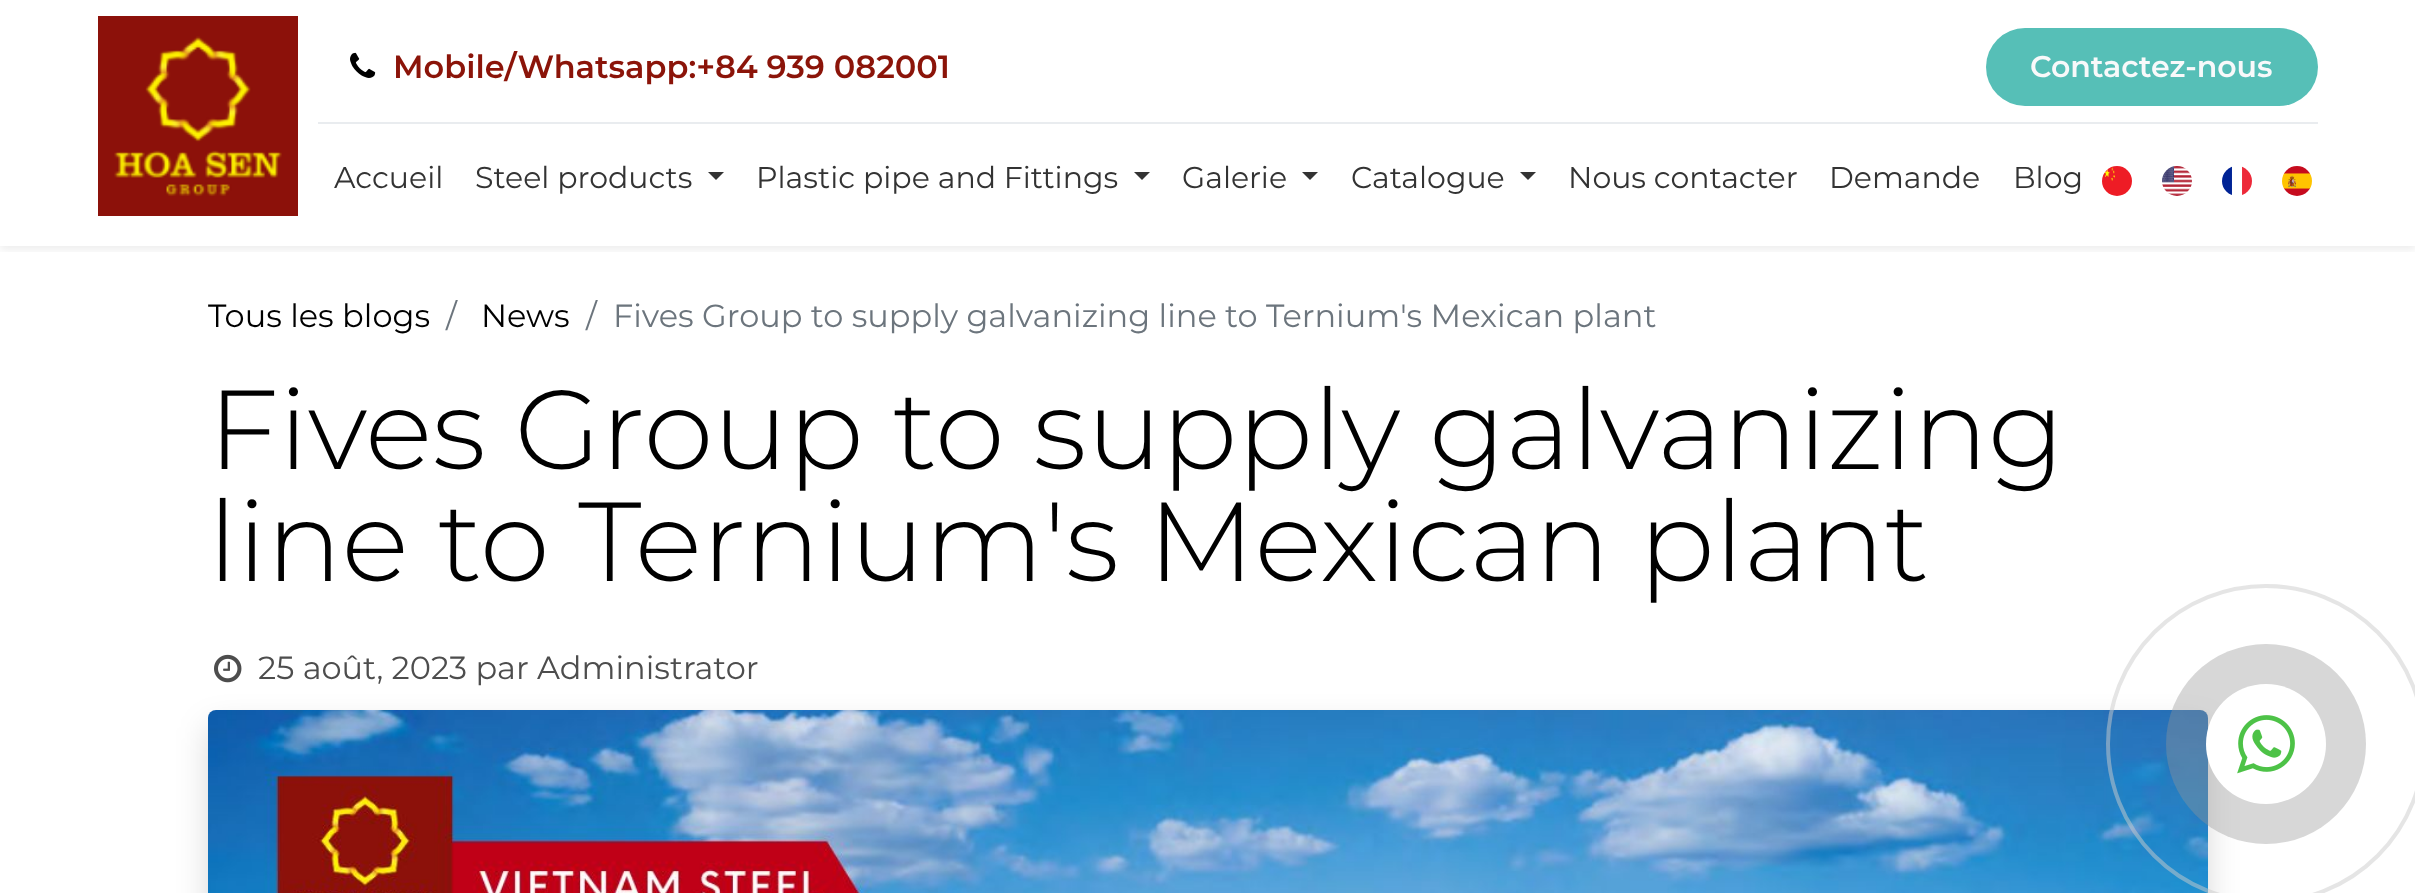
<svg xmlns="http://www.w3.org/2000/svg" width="2415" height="893">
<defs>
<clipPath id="clip1"><rect x="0" y="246" width="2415" height="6"/></clipPath>
</defs>
<rect width="100%" height="100%" fill="#fff"/>
<g clip-path="url(#clip1)">
<rect y="4" width="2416" height="246" fill="#00000012" filter="blur(4px)"/>
</g>
<image x="98" y="16" width="200" height="200" href="media/1.png"/>
<image x="350" y="52" width="26" height="26" href="media/2.png"/>
<text x="393" y="78" style="font-family:Montserrat;font-size:32px;font-weight:600;fill:#8b1409">Mobile/Whatsapp:+84 939 082001</text>
<rect x="1986" y="28" width="332" height="78" rx="39" fill="#56bfb7"/>
<text x="2030" y="77" style="font-family:Montserrat;font-size:30px;font-weight:600;fill:#f8f9fa">Contactez-nous</text>
<rect x="318" y="122" width="2000" height="2" fill="#e9ecef"/>
<text x="334" y="188" style="font-family:Montserrat;font-size:30px;fill:#333">Accueil</text>
<text x="475" y="188" style="font-family:Montserrat;font-size:30px;fill:#333">Steel products</text>
<path d="M708 172h16l-8 8z" fill="#333"/>
<text x="756" y="188" style="font-family:Montserrat;font-size:30px;fill:#333">Plastic pipe and Fittings</text>
<path d="M1134 172h16l-8 8z" fill="#333"/>
<text x="1182" y="188" style="font-family:Montserrat;font-size:30px;fill:#333">Galerie</text>
<path d="M1302 172h16l-8 8z" fill="#333"/>
<text x="1351" y="188" style="font-family:Montserrat;font-size:30px;fill:#333">Catalogue</text>
<path d="M1520 172h16l-8 8z" fill="#333"/>
<text x="1568" y="188" style="font-family:Montserrat;font-size:30px;fill:#333">Nous contacter</text>
<text x="1829" y="188" style="font-family:Montserrat;font-size:30px;fill:#333">Demande</text>
<text x="2013" y="188" style="font-family:Montserrat;font-size:30px;fill:#333">Blog</text>
<image x="2102" y="166" width="30" height="30" href="media/3.png"/>
<image x="2162" y="166" width="30" height="30" href="media/4.png"/>
<image x="2222" y="166" width="30" height="29" href="media/5.png"/>
<image x="2282" y="166" width="30" height="30" href="media/6.png"/>
<text x="208" y="327" style="font-family:Montserrat;font-size:32px;fill:#000">Tous les blogs</text>
<text x="446" y="327" style="font-family:Montserrat;font-size:32px;fill:#6c757d">/</text>
<text x="481" y="327" style="font-family:Montserrat;font-size:32px;fill:#000">News</text>
<text x="586" y="327" style="font-family:Montserrat;font-size:32px;fill:#6c757d">/</text>
<text x="613" y="327" style="font-family:Montserrat;font-size:32px;fill:#6c757d">Fives Group to supply galvanizing line to Ternium's Mexican plant</text>
<text x="208" y="469" style="font-family:Montserrat;font-size:112px;font-weight:300;fill:#000">Fives Group to supply galvanizing</text>
<text x="208" y="581" style="font-family:Montserrat;font-size:112px;font-weight:300;fill:#000">line to Ternium's Mexican plant</text>
<image x="214" y="654" width="28" height="29" href="media/7.png"/>
<text x="258" y="679" style="font-family:Montserrat;font-size:32px;fill:#4d4d4d">25 août, 2023 par</text>
<rect x="208" y="726" width="2000" height="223" rx="8" fill="#00000026" filter="blur(16px)"/>
<text x="537" y="679" style="font-family:Montserrat;font-size:32px;fill:#4d4d4d">Administrator</text>
<image x="208" y="710" width="2000" height="183" href="media/8.png"/>
<circle cx="2266" cy="744" r="158" fill="none" stroke="#cccccc80" stroke-width="4"/>
<circle cx="2266" cy="744" r="100" fill="#95959561"/>
<circle cx="2266" cy="744" r="60" fill="#fff"/>
<image x="2237" y="715" width="58" height="59" href="media/9.png"/>
</svg>
